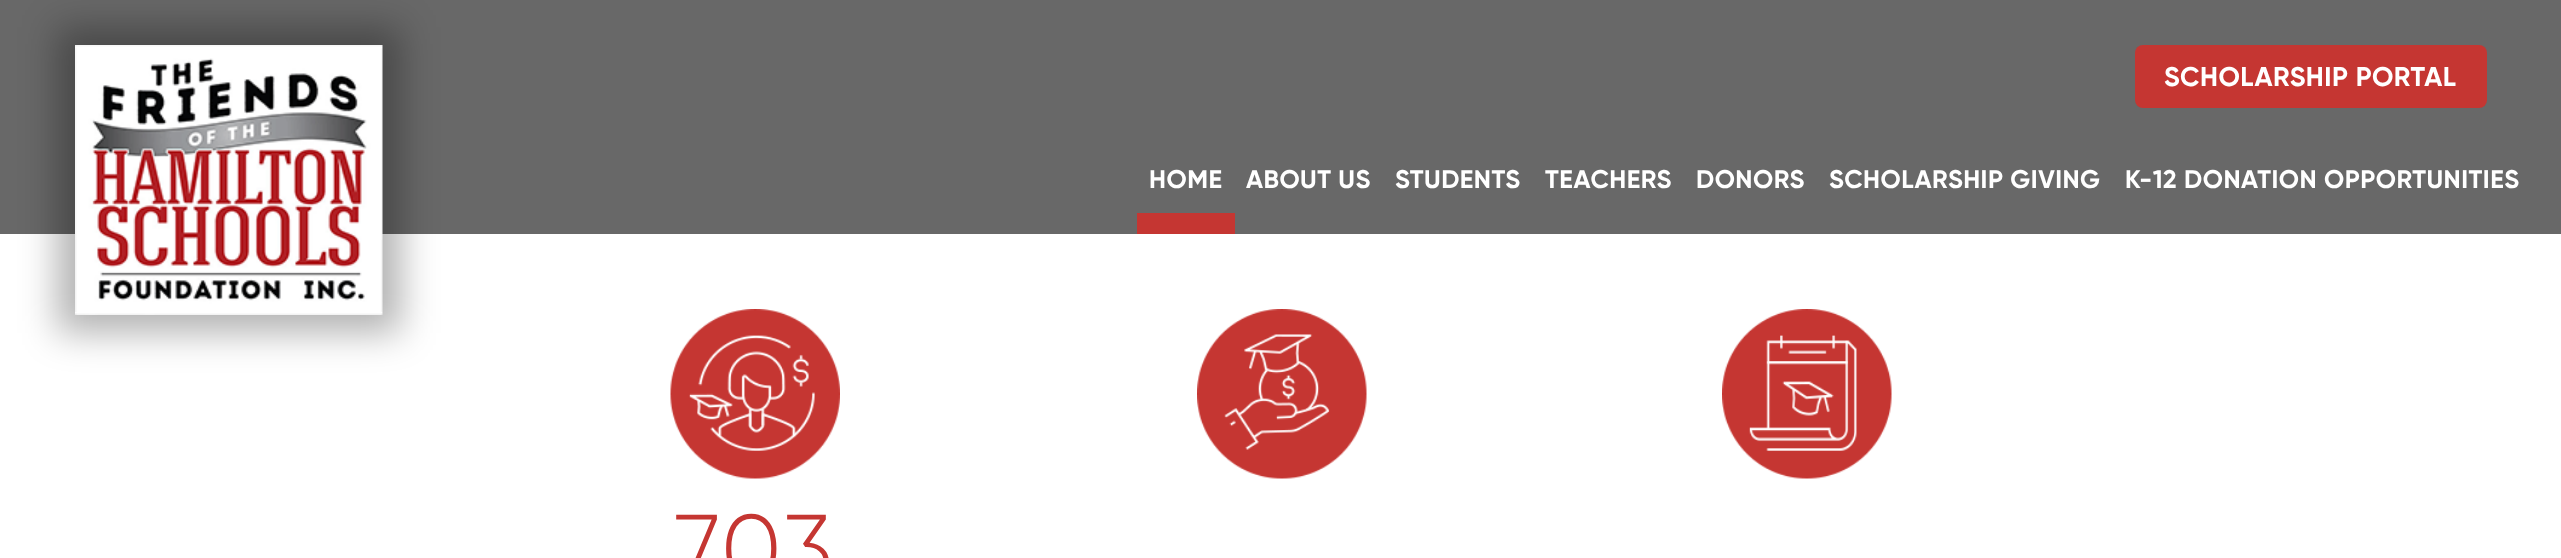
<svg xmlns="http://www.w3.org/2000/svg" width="2561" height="558">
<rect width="100%" height="100%" fill="#fff"/>
<rect width="2561" height="234" fill="#686868"/>
<rect x="57" y="27" width="344" height="306" fill="#0000004d" filter="blur(18px)"/>
<image x="75" y="45" width="308" height="270" href="media/1.png"/>
<rect x="2135" y="45" width="352" height="63" rx="8" fill="#c53632"/>
<text x="2164" y="86" style="font-family:Gilroy;font-size:27px;font-weight:bold;letter-spacing:0.5px;fill:#fff">SCHOLARSHIP PORTAL</text>
<rect x="1137" y="213" width="98" height="21" fill="#c53632"/>
<text x="1149" y="188" style="font-family:Gilroy;font-size:25.5px;font-weight:bold;letter-spacing:0.5px;fill:#fff">HOME</text>
<text x="1246" y="188" style="font-family:Gilroy;font-size:25.5px;font-weight:bold;letter-spacing:0.5px;fill:#fff">ABOUT US</text>
<text x="1395" y="188" style="font-family:Gilroy;font-size:25.5px;font-weight:bold;letter-spacing:0.5px;fill:#fff">STUDENTS</text>
<text x="1545" y="188" style="font-family:Gilroy;font-size:25.5px;font-weight:bold;letter-spacing:0.5px;fill:#fff">TEACHERS</text>
<text x="1696" y="188" style="font-family:Gilroy;font-size:25.5px;font-weight:bold;letter-spacing:0.5px;fill:#fff">DONORS</text>
<text x="1829" y="188" style="font-family:Gilroy;font-size:25.5px;font-weight:bold;letter-spacing:0.5px;fill:#fff">SCHOLARSHIP GIVING</text>
<text x="2125" y="188" style="font-family:Gilroy;font-size:25.5px;font-weight:bold;letter-spacing:0.5px;fill:#fff">K-12 DONATION OPPORTUNITIES</text>
<image x="1197" y="309" width="170" height="170" href="media/2.png"/>
<image x="1722" y="309" width="170" height="170" href="media/3.png"/>
<image x="670" y="309" width="170" height="170" href="media/4.png"/>
<text x="674" y="582" style="font-family:Gilroy;font-size:96px;font-weight:300;letter-spacing:2px;fill:#c53632">703</text>
</svg>
